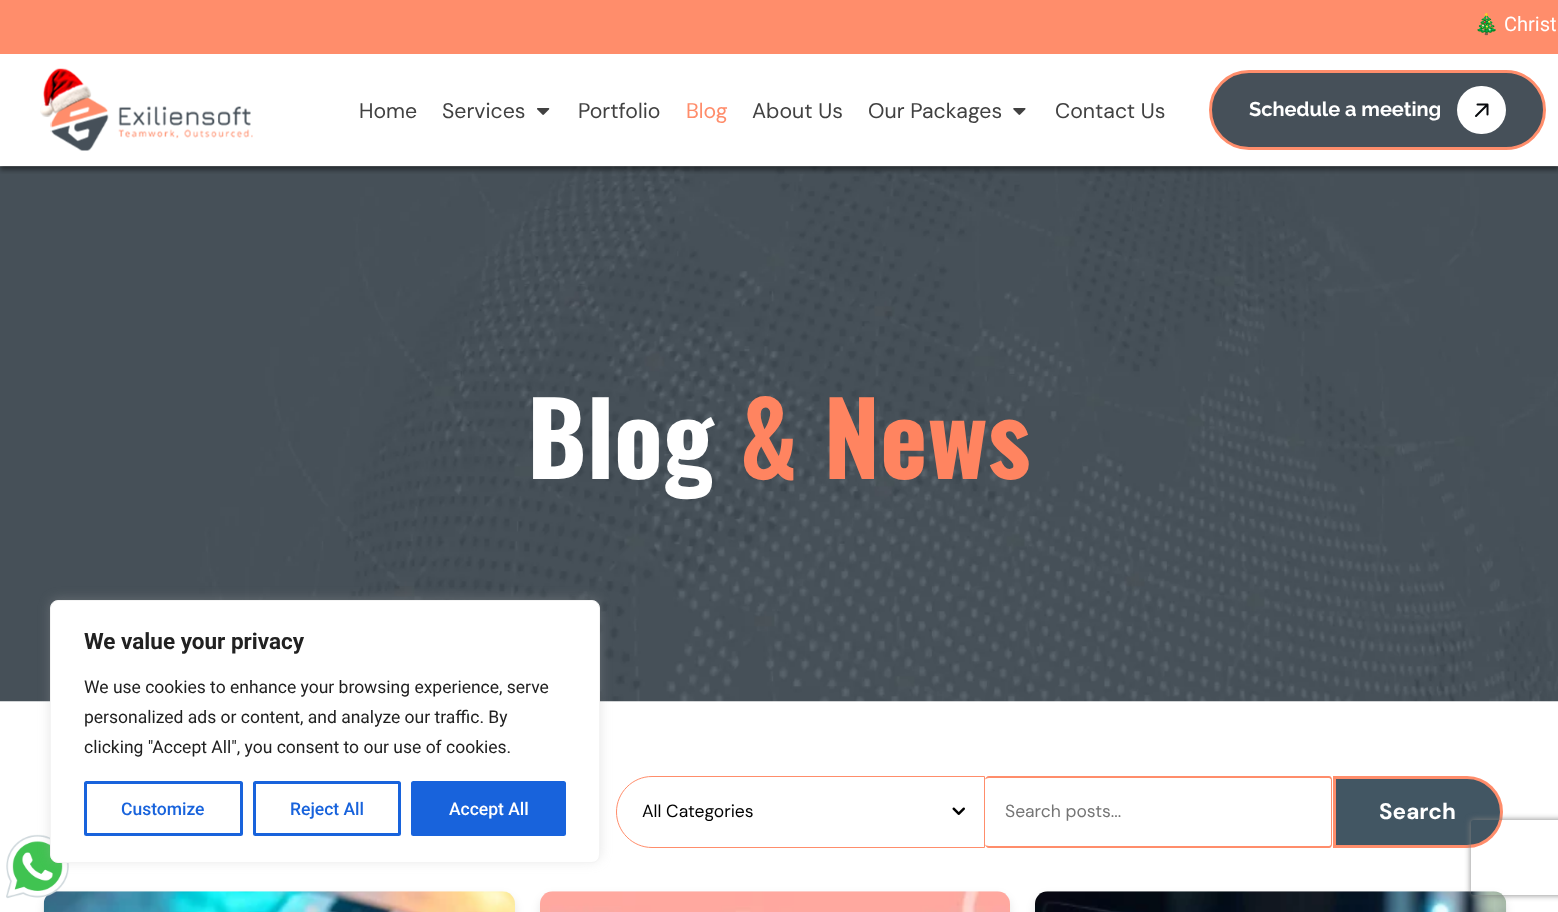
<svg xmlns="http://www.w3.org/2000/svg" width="1558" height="912">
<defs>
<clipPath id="clip1"><rect x="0" y="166" width="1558" height="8"/></clipPath>
<clipPath id="clip2"><path d="M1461 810h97v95h-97zm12.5 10h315c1.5 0 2.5 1 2.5 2.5v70c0 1.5-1 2.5-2.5 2.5h-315c-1.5 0-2.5-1-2.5-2.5v-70c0-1.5 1-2.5 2.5-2.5z" clip-rule="evenodd"/></clipPath>
</defs>
<rect width="100%" height="100%" fill="#fff"/>
<rect width="1558" height="54" fill="#ff8d6b"/>
<text x="1474" y="31" style="font-family:Noto Color Emoji;font-size:20px;fill:#fff">🎄</text>
<text x="1504" y="31" style="font-family:Roboto;font-size:20px;fill:#fff">Christ</text>
<image x="0" y="166" width="1558" height="536" href="media/4.png"/>
<g clip-path="url(#clip1)">
<rect y="58" width="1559" height="112" fill="#00000073" filter="blur(2.5px)"/>
</g>
<image x="40" y="68" width="213" height="83" href="media/1.png"/>
<text x="359" y="118" style="font-family:DM Sans;font-size:21.25px;fill:#414141">Home</text>
<text x="442" y="118" style="font-family:DM Sans;font-size:21.25px;fill:#414141">Services</text>
<image x="537" y="108" width="13" height="7" href="media/2.png"/>
<text x="578" y="118" style="font-family:DM Sans;font-size:21.25px;fill:#414141">Portfolio</text>
<text x="686" y="118" style="font-family:DM Sans;font-size:21.25px;fill:#ff8d6b">Blog</text>
<text x="752" y="118" style="font-family:DM Sans;font-size:21.25px;fill:#414141">About Us</text>
<text x="868" y="118" style="font-family:DM Sans;font-size:21.25px;fill:#414141">Our Packages</text>
<image x="1013" y="108" width="13" height="7" href="media/3.png"/>
<text x="1055" y="118" style="font-family:DM Sans;font-size:21.25px;fill:#414141">Contact Us</text>
<rect x="1210.5" y="71.5" width="334" height="77" rx="38.5" fill="#465059" stroke="#ff8d6b" stroke-width="3"/>
<text x="1249" y="116" style="font-family:Raleway;font-size:20px;font-weight:bold;fill:#fff">Schedule a meeting</text>
<rect x="1457" y="86" width="49" height="48" rx="24" fill="#fff"/>
<path d="M1476 116l11.5-11.5m0 0h-10m10 0v10" fill="none" stroke="#090b0e" stroke-width="2" stroke-linecap="round" stroke-linejoin="round"/>
<image x="952" y="807" width="13" height="8" href="media/5.png"/>
<path d="M652 776.5h332.5v71h-332.5c-19.5 0-35.5-16-35.5-35.5c0-19.5 16-35.5 35.5-35.5z" fill="none" stroke="#ff8d6b"/>
<rect x="44" y="896" width="471" height="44" rx="13" fill="#0000001a" filter="blur(5px)"/>
<image x="43" y="891" width="472" height="21" href="media/6.png"/>
<image x="6" y="834" width="63" height="65" href="media/9.png"/>
<rect x="50" y="599" width="550" height="262" rx="8" fill="#acabab4d" filter="blur(6px)"/>
<rect x="50.5" y="600.5" width="549" height="262" rx="7.5" fill="#fff" stroke="#f4f4f4"/>
<text x="84" y="649" style="font-family:Roboto;font-size:22.5px;font-weight:bold;fill:#212121">We value your privacy</text>
<text x="84" y="693" style="font-family:Roboto;font-size:17.5px;fill:#212121">We use cookies to enhance your browsing experience, serve</text>
<text x="84" y="723" style="font-family:Roboto;font-size:17.5px;fill:#212121">personalized ads or content, and analyze our traffic. By</text>
<text x="84" y="753" style="font-family:Roboto;font-size:17.5px;fill:#212121">clicking "Accept All", you consent to our use of cookies.</text>
<rect x="85.5" y="782.5" width="156" height="52" rx="1" fill="none" stroke="#1863dc" stroke-width="3"/>
<text x="121" y="815" style="font-family:Roboto;font-size:17.5px;font-weight:500;fill:#1863dc">Customize</text>
<rect x="254.5" y="782.5" width="145" height="52" rx="1" fill="none" stroke="#1863dc" stroke-width="3"/>
<text x="290" y="815" style="font-family:Roboto;font-size:17.5px;font-weight:500;fill:#1863dc">Reject All</text>
<rect x="412.5" y="782.5" width="152" height="52" rx="1" fill="#1863dc" stroke="#1863dc" stroke-width="3"/>
<text x="449" y="815" style="font-family:Roboto;font-size:17.5px;font-weight:500;fill:#fff">Accept All</text>
<text x="527" y="479" style="font-family:Oswald;font-size:101px;font-weight:bold;fill:#fff">Blog</text>
<text x="740" y="479" style="font-family:Oswald;font-size:101px;font-weight:bold;fill:#ff8460">&amp; News</text>
<text x="642" y="817" style="font-family:DM Sans;font-size:17.5px;fill:#000">All Categories</text>
<path d="M989 776h340c2 0 3 2 3 4v64c0 2-1 4-3 4h-340c-2 0-4-2-4-4v-64c0-2 2-4 4-4zm0 2h340c1 0 2 1 2 2v64c0 1-1 2-2 2h-340c-2 0-4-1-4-2v-64c0-1 2-2 4-2z" fill="#ff8d6b" fill-rule="evenodd"/>
<text x="1005" y="817" style="font-family:DM Sans;font-size:17.5px;fill:#757575">Search posts...</text>
<path d="M1334.5 777.5h132.5c19 0 34.5 15.5 34.5 34.5c0 19-15.5 34.5-34.5 34.5h-132.5z" fill="#425663" stroke="#ff8d6b" stroke-width="3"/>
<text x="1379" y="819" style="font-family:DM Sans;font-size:22.5px;font-weight:bold;fill:#fff">Search</text>
<rect x="540" y="896" width="470" height="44" rx="13" fill="#0000001a" filter="blur(5px)"/>
<image x="540" y="891" width="470" height="21" href="media/7.png"/>
<rect x="1035" y="896" width="471" height="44" rx="13" fill="#0000001a" filter="blur(5px)"/>
<image x="1035" y="891" width="472" height="21" href="media/8.png"/>
<g clip-path="url(#clip2)">
<rect x="1471" y="820" width="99" height="75" rx="2.5" fill="#808080" filter="blur(3px)"/>
</g>
</svg>
